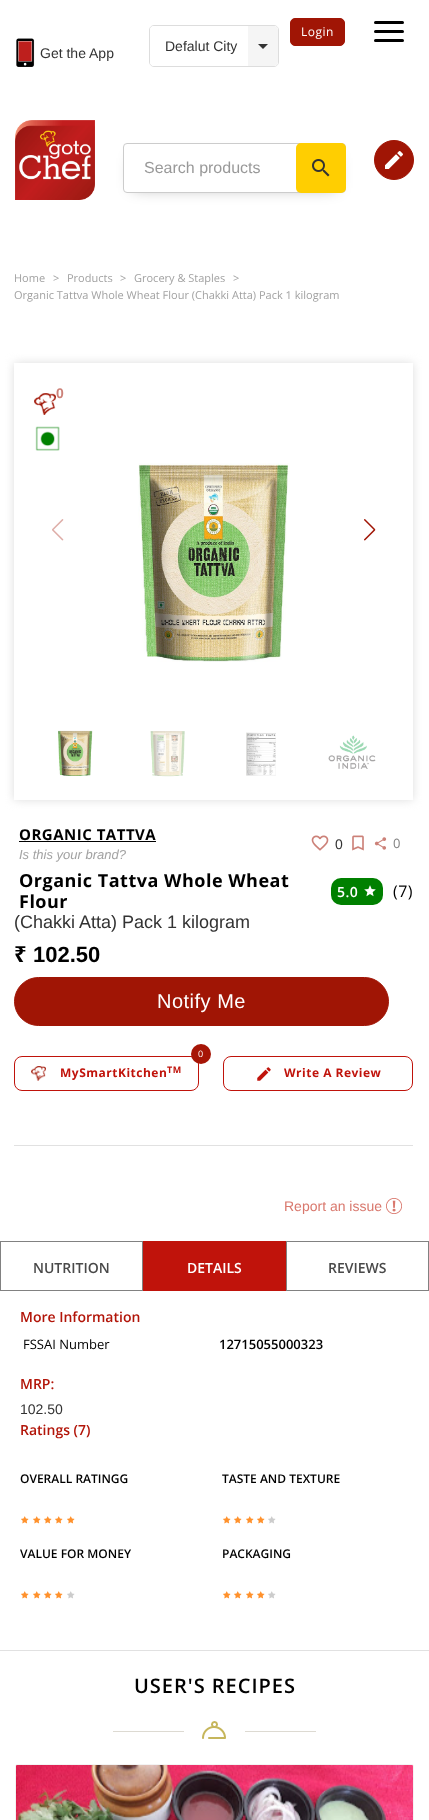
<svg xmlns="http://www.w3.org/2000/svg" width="429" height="1820">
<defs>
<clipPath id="clip1"><path d="M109 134h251v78h-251zm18 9h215c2 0 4 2 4 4v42c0 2-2 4-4 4h-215c-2 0-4-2-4-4v-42c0-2 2-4 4-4z" clip-rule="evenodd"/></clipPath>
<clipPath id="clip2"><path d="M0 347h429v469h-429zm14 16h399v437h-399z" clip-rule="evenodd"/></clipPath>
</defs>
<rect width="100%" height="100%" fill="#fff"/>
<image x="16" y="38" width="19" height="29" href="media/1.png"/>
<text x="40" y="58" style="font-family:Liberation Sans;font-size:14px;fill:#333">Get the App</text>
<rect x="290.5" y="18.5" width="54" height="27" rx="4.5" fill="#a01505" stroke="#a01505"/>
<text x="301" y="36" style="font-family:Open Sans;font-size:12px;letter-spacing:0.5px;fill:#fff">Login</text>
<rect x="374" y="21" width="30" height="3" rx="1.5" fill="#000"/>
<rect x="374" y="30" width="30" height="3" rx="1.5" fill="#000"/>
<rect x="374" y="39" width="30" height="3" rx="1.5" fill="#000"/>
<rect x="149.5" y="25.5" width="129" height="41" rx="4.5" fill="none" stroke="#ddd"/>
<rect x="150" y="26" width="128" height="40" rx="4" fill="#fff"/>
<text x="165" y="51" style="font-family:Liberation Sans;font-size:14px;fill:#333">Defalut City</text>
<path d="M248 26h26c2 0 4 2 4 4v32c0 2-2 4-4 4h-26z" fill="#f5f5f5"/>
<path d="M258 44h10l-5 5z" fill="#333"/>
<image x="15" y="120" width="80" height="80" href="media/2.png"/>
<g clip-path="url(#clip1)">
<rect x="133" y="158" width="203" height="30" fill="#00000059" filter="blur(7.5px)"/>
</g>
<rect x="123.5" y="143.5" width="222" height="49" rx="3.5" fill="none" stroke="#ccc"/>
<text x="144" y="173" style="font-family:Liberation Sans;font-size:16px;fill:#999">Search products</text>
<rect x="296" y="143" width="50" height="50" rx="5" fill="#ffce01"/>
<image x="312" y="159" width="18" height="18" href="media/3.png"/>
<circle cx="394" cy="160" r="19.5" fill="#a01505" stroke="#a01505"/>
<image x="385" y="151" width="18" height="18" href="media/4.png"/>
<text x="14" y="282" style="font-family:Open Sans;font-size:11px;fill:#a2a2a2">Home</text>
<text x="53" y="282" style="font-family:Open Sans;font-size:11px;fill:#a2a2a2">&gt;</text>
<text x="67" y="282" style="font-family:Open Sans;font-size:11px;fill:#a2a2a2">Products</text>
<text x="120" y="282" style="font-family:Open Sans;font-size:11px;fill:#a2a2a2">&gt;</text>
<text x="134" y="282" style="font-family:Open Sans;font-size:11px;fill:#a2a2a2">Grocery &amp; Staples</text>
<text x="233" y="282" style="font-family:Open Sans;font-size:11px;fill:#a2a2a2">&gt;</text>
<text x="14" y="299" style="font-family:Open Sans;font-size:11px;fill:#a2a2a2">Organic Tattva Whole Wheat Flour (Chakki Atta) Pack 1 kilogram</text>
<g clip-path="url(#clip2)">
<rect x="14" y="363" width="399" height="437" fill="#ddd" filter="blur(5px)"/>
</g>
<image x="34" y="393" width="22" height="22" href="media/5.png"/>
<text x="56" y="398" style="font-family:Liberation Sans;font-size:14px;font-weight:bold;fill:#cc8178">0</text>
<image x="35" y="426" width="25" height="25" href="media/6.png"/>
<image x="138" y="463" width="152" height="199" href="media/7.png"/>
<image x="52" y="519" width="12" height="22" href="media/8.png"/>
<image x="364" y="519" width="12" height="22" href="media/9.png"/>
<image x="58" y="730" width="35" height="46" href="media/10.png"/>
<image x="150" y="731" width="35" height="46" href="media/11.png"/>
<image x="246" y="732" width="30" height="44" href="media/12.png"/>
<image x="328" y="735" width="48" height="34" href="media/13.png"/>
<text x="19" y="840" style="font-family:Open Sans;font-size:15px;font-weight:bold;letter-spacing:0.5px;fill:#000">ORGANIC TATTVA</text>
<rect x="19" y="841" width="137" height="1" fill="#000"/>
<text x="19" y="859" style="font-family:Liberation Sans;font-size:13px;font-style:italic;fill:#a2a2a2">Is this your brand?</text>
<image x="311" y="835" width="18" height="16" href="media/14.png"/>
<text x="335" y="849" style="font-family:Liberation Sans;font-size:14px;fill:#333">0</text>
<image x="352" y="835" width="12" height="16" href="media/15.png"/>
<image x="374" y="837" width="13" height="13" href="media/16.png"/>
<text x="393" y="848" style="font-family:Open Sans;font-size:13px;fill:#828282">0</text>
<text x="19" y="887" style="font-family:Open Sans;font-size:18px;font-weight:bold;letter-spacing:0.5px;fill:#000">Organic Tattva Whole Wheat</text>
<text x="19" y="908" style="font-family:Open Sans;font-size:18px;font-weight:bold;letter-spacing:0.5px;fill:#000">Flour</text>
<rect x="331" y="878" width="52" height="27" rx="10" fill="#008000"/>
<text x="337" y="897" style="font-family:Open Sans;font-size:14px;font-weight:600;letter-spacing:0.5px;fill:#fff">5.0</text>
<image x="364" y="885" width="12" height="12" href="media/17.png"/>
<text x="393" y="897" style="font-family:Open Sans;font-size:16px;letter-spacing:0.5px;fill:#000">(7)</text>
<text x="14" y="928" style="font-family:Liberation Sans;font-size:18px;fill:#333">(Chakki Atta) Pack 1 kilogram</text>
<text x="14" y="962" style="font-family:Noto Sans;font-size:22px;font-weight:bold;fill:#000">₹</text>
<text x="33" y="962" style="font-family:Liberation Sans;font-size:22px;font-weight:bold;fill:#000">102.50</text>
<rect x="14.5" y="977.5" width="374" height="48" rx="24" fill="#a01505" stroke="#a01505"/>
<text x="157" y="1008" style="font-family:Liberation Sans;font-size:20px;letter-spacing:0.5px;fill:#fff">Notify Me</text>
<rect x="14.5" y="1056.5" width="184" height="34" rx="7.5" fill="none" stroke="#c0130b"/>
<circle cx="201" cy="1054" r="10" fill="#a61506"/>
<text x="198" y="1057" style="font-family:Open Sans;font-size:9px;letter-spacing:0.5px;fill:#fff">0</text>
<image x="31" y="1066" width="15" height="15" href="media/18.png"/>
<text x="60" y="1077" style="font-family:Open Sans;font-size:12px;font-weight:bold;letter-spacing:0.5px;fill:#c0130b">MySmartKitchen</text>
<text x="167" y="1073" style="font-family:Open Sans;font-size:9px;font-weight:bold;letter-spacing:0.5px;fill:#c0130b">TM</text>
<rect x="223.5" y="1056.5" width="189" height="34" rx="7.5" fill="none" stroke="#c0130b"/>
<image x="257" y="1067" width="14" height="14" href="media/19.png"/>
<text x="284" y="1077" style="font-family:Open Sans;font-size:12px;font-weight:bold;letter-spacing:0.5px;fill:#c0130b">Write A Review</text>
<rect x="14" y="1145" width="399" height="1" fill="#e1e1e1"/>
<text x="284" y="1211" style="font-family:Liberation Sans;font-size:14px;fill:#d9786d">Report an issue</text>
<image x="386" y="1198" width="16" height="16" href="media/20.png"/>
<rect y="1650" width="429" height="1" fill="#e1e1e1"/>
<rect x="0.5" y="1241.5" width="142" height="49" fill="none" stroke="#818181"/>
<text x="33" y="1273" style="font-family:Open Sans;font-size:14px;font-weight:600;fill:#494949">NUTRITION</text>
<rect x="143" y="1241" width="143" height="50" fill="#c0130b"/>
<text x="187" y="1273" style="font-family:Open Sans;font-size:14px;font-weight:600;fill:#fff">DETAILS</text>
<rect x="286.5" y="1241.5" width="142" height="49" fill="none" stroke="#818181"/>
<text x="328" y="1273" style="font-family:Open Sans;font-size:14px;font-weight:600;fill:#494949">REVIEWS</text>
<text x="20" y="1322" style="font-family:Open Sans;font-size:14px;font-weight:600;fill:#b21509">More Information</text>
<text x="23" y="1349" style="font-family:Open Sans;font-size:13px;fill:#000">FSSAI Number</text>
<text x="219" y="1349" style="font-family:Open Sans;font-size:13px;font-weight:600;fill:#000">12715055000323</text>
<text x="20" y="1389" style="font-family:Open Sans;font-size:14px;font-weight:600;fill:#b21509">MRP:</text>
<text x="20" y="1414" style="font-family:Liberation Sans;font-size:14px;fill:#333">102.50</text>
<text x="20" y="1435" style="font-family:Open Sans;font-size:14px;font-weight:600;fill:#b21509">Ratings (7)</text>
<text x="20" y="1483" style="font-family:Open Sans;font-size:12px;font-weight:600;fill:#000">OVERALL RATINGG</text>
<image x="21" y="1516" width="8" height="8" href="media/21.png"/>
<image x="33" y="1516" width="8" height="8" href="media/21.png"/>
<image x="44" y="1516" width="8" height="8" href="media/21.png"/>
<image x="55" y="1516" width="8" height="8" href="media/21.png"/>
<image x="67" y="1516" width="8" height="8" href="media/21.png"/>
<text x="222" y="1483" style="font-family:Open Sans;font-size:12px;font-weight:600;fill:#000">TASTE AND TEXTURE</text>
<image x="223" y="1516" width="8" height="8" href="media/21.png"/>
<image x="234" y="1516" width="8" height="8" href="media/21.png"/>
<image x="246" y="1516" width="8" height="8" href="media/21.png"/>
<image x="257" y="1516" width="8" height="8" href="media/21.png"/>
<image x="268" y="1516" width="8" height="8" href="media/22.png"/>
<text x="20" y="1558" style="font-family:Open Sans;font-size:12px;font-weight:600;fill:#000">VALUE FOR MONEY</text>
<image x="21" y="1591" width="8" height="8" href="media/21.png"/>
<image x="33" y="1591" width="8" height="8" href="media/21.png"/>
<image x="44" y="1591" width="8" height="8" href="media/21.png"/>
<image x="55" y="1591" width="8" height="8" href="media/21.png"/>
<image x="67" y="1591" width="8" height="8" href="media/22.png"/>
<text x="222" y="1558" style="font-family:Open Sans;font-size:12px;font-weight:600;fill:#000">PACKAGING</text>
<image x="223" y="1591" width="8" height="8" href="media/21.png"/>
<image x="234" y="1591" width="8" height="8" href="media/21.png"/>
<image x="246" y="1591" width="8" height="8" href="media/21.png"/>
<image x="257" y="1591" width="8" height="8" href="media/21.png"/>
<image x="268" y="1591" width="8" height="8" href="media/22.png"/>
<text x="134" y="1693" style="font-family:Open Sans;font-size:20px;font-weight:600;letter-spacing:1px;fill:#000">USER'S RECIPES</text>
<image x="113" y="1721" width="203" height="18" href="media/23.png"/>
<rect x="15.5" y="1764.5" width="398" height="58" rx="1.5" fill="none" stroke="#f3f3f3"/>
<image x="16" y="1765" width="397" height="55" href="media/24.png"/>
</svg>
